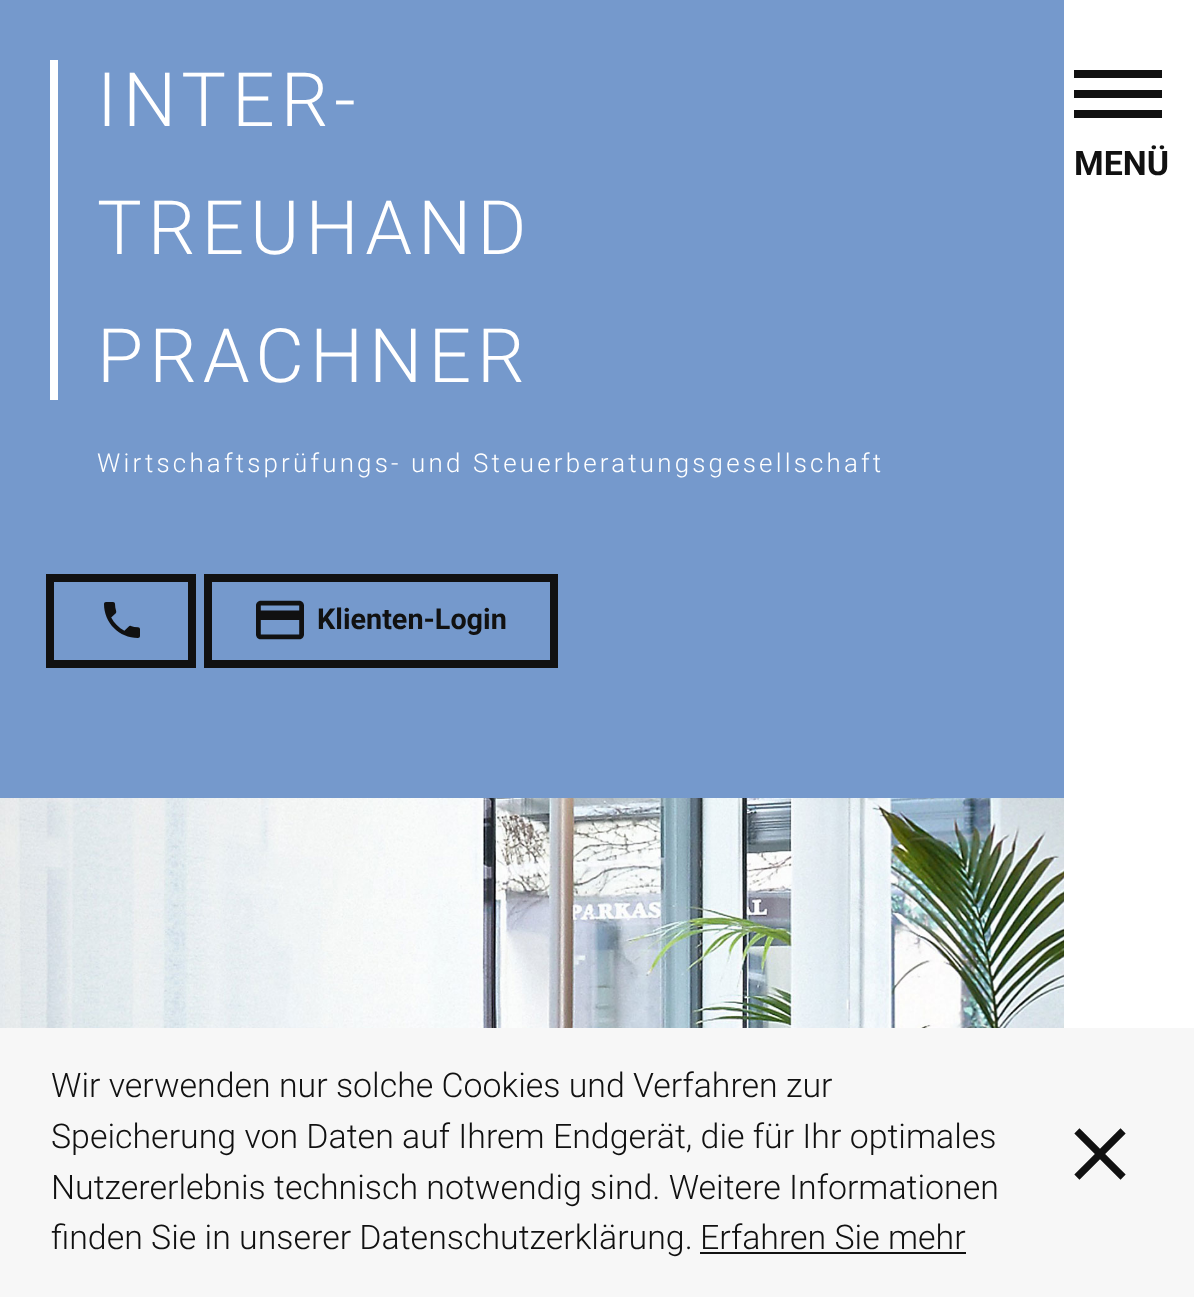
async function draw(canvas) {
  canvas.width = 1194
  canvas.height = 1297
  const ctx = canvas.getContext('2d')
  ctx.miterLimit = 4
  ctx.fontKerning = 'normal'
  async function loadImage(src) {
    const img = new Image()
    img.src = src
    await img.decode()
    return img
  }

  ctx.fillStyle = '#7599cc'
  ctx.fillRect(0, 0, 1194, 1297)
  ctx.fillStyle = '#fff'
  ctx.fillRect(50, 60, 8, 340)
  ctx.letterSpacing = '6px'
  ctx.font = '300 75px Roboto'
  ctx.fillText('INTER-', 97, 126)
  ctx.fillText('TREUHAND', 97, 254)
  ctx.fillText('PRACHNER', 97, 382)
  ctx.letterSpacing = '3.2px'
  ctx.font = '300 25.9px Roboto'
  ctx.fillText('Wirtschaftsprüfungs- und Steuerberatungsgesellschaft', 97, 472)
  ctx.strokeStyle = '#111'
  ctx.lineWidth = 8
  ctx.strokeRect(50, 578, 142, 86)
  ctx.drawImage(await loadImage('image0.png'), 104, 602, 36, 36)
  ctx.strokeRect(208, 578, 346, 86)
  ctx.drawImage(await loadImage('image1.png'), 256, 600, 48, 40)
  ctx.letterSpacing = '0px'
  ctx.font = 'bold 28.75px Roboto'
  ctx.fillStyle = '#111'
  ctx.fillText('Klienten-Login', 317, 629)
  ctx.drawImage(await loadImage('image2.png'), 0, 798, 1064, 230)
  ctx.fillStyle = '#fff'
  ctx.fillRect(1064, 0, 130, 1028)
  ctx.fillStyle = '#111'
  ctx.fillRect(1074, 70, 88, 8)
  ctx.fillRect(1074, 90, 88, 8)
  ctx.fillRect(1074, 110, 88, 8)
  ctx.font = 'bold 33.9px Roboto'
  ctx.fillText('MENÜ', 1074, 175)
  ctx.fillStyle = '#f7f7f7'
  ctx.fillRect(0, 1028, 1194, 269)
  ctx.font = '300 33.9px Roboto'
  ctx.fillStyle = '#111'
  ctx.fillText('Wir verwenden nur solche Cookies und Verfahren zur', 51, 1097)
  ctx.fillText('Speicherung von Daten auf Ihrem Endgerät, die für Ihr optimales', 51, 1148)
  ctx.fillText('Nutzererlebnis technisch notwendig sind. Weitere Informationen', 51, 1199)
  ctx.fillText('finden Sie in unserer Datenschutzerklärung.', 51, 1249)
  ctx.fillText('Erfahren Sie mehr', 700, 1249)
  ctx.fillRect(700, 1252, 266, 2)
  ctx.drawImage(await loadImage('image3.png'), 1074, 1128, 52, 52)
}

draw(document.querySelector('canvas'))
